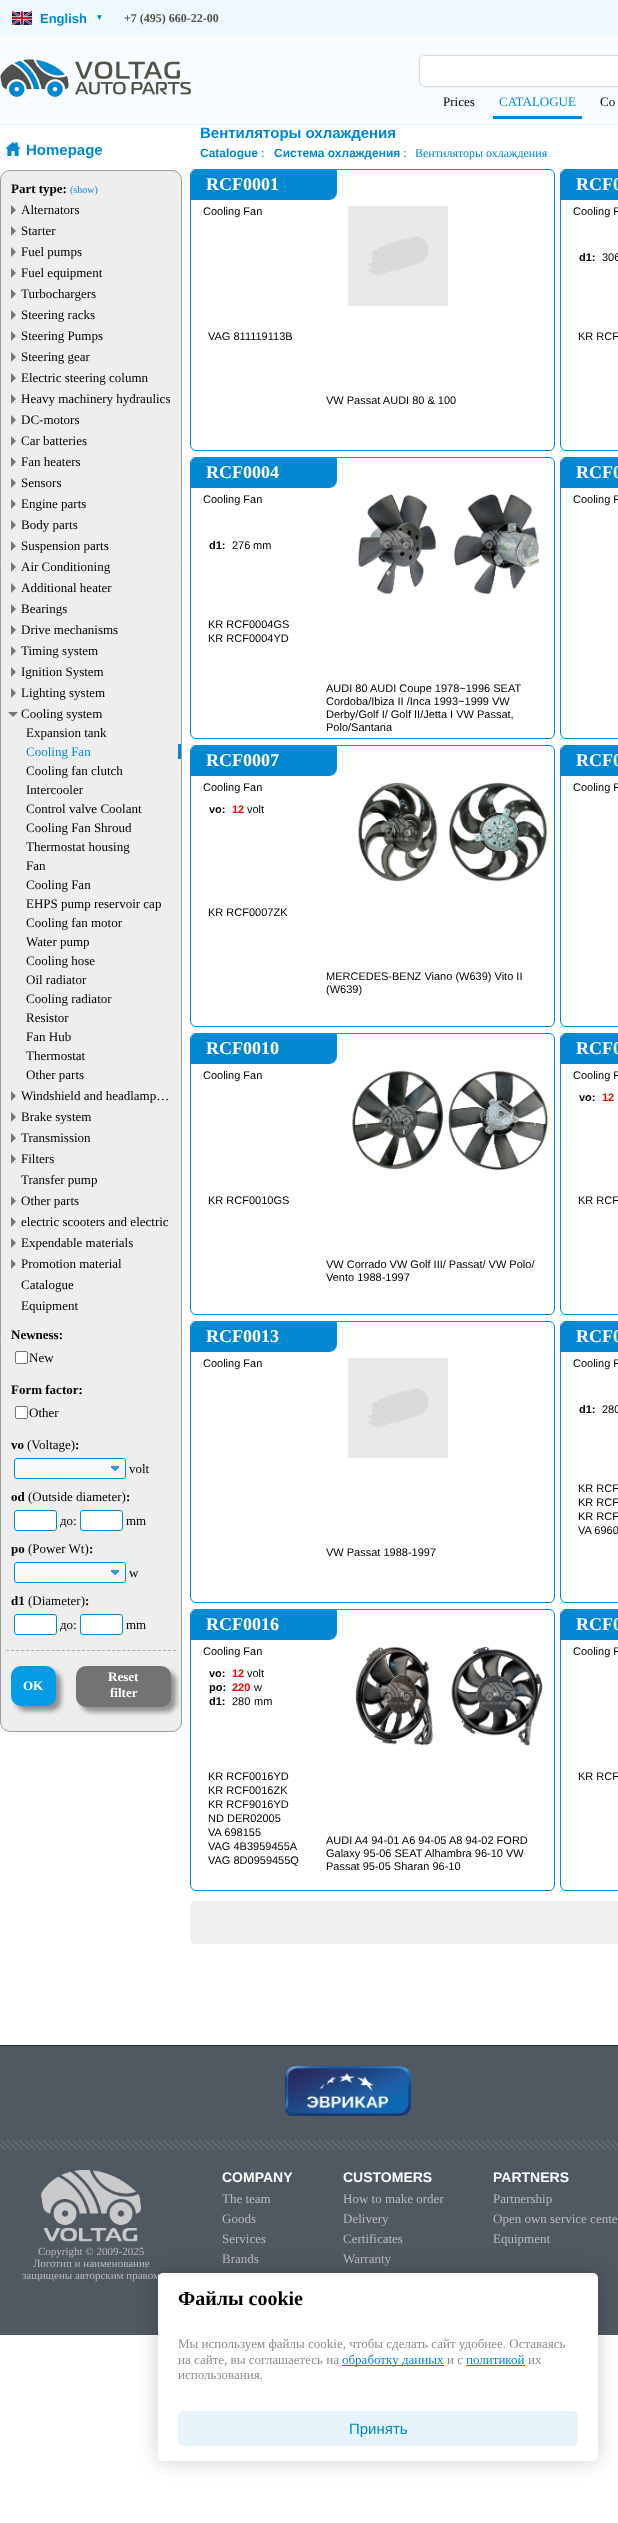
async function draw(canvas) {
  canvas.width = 618
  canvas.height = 2523
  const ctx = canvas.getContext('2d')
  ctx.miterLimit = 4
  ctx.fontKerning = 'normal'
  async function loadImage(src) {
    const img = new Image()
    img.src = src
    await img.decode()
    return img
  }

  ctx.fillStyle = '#fff'
  ctx.fillRect(0, 0, 618, 2523)
  ctx.fillStyle = '#f8fcff'
  ctx.fillRect(0, 36, 618, 88)
  ctx.fillStyle = '#e1f5fe'
  ctx.fillRect(0, 124, 618, 1)
  ctx.fillStyle = '#f0f8ff'
  ctx.fillRect(0, 0, 618, 36)
  ctx.drawImage(await loadImage('image0.png'), 12, 11, 20, 14)
  ctx.font = 'bold 13px Liberation Sans'
  ctx.fillStyle = '#0288d1'
  ctx.fillText('English', 40, 23)
  ctx.font = 'bold 9px DejaVu Sans'
  ctx.fillText('▾', 97, 20)
  ctx.font = 'bold 12px Liberation Serif'
  ctx.fillStyle = '#535448'
  ctx.fillText('+7 (495) 660-22-00', 124, 22)
  ctx.drawImage(await loadImage('image1.png'), 0, 59, 191, 38)
  ctx.save()
  ctx.beginPath()
  ctx.moveTo(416, 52)
  ctx.lineTo(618, 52)
  ctx.lineTo(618, 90)
  ctx.lineTo(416, 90)
  ctx.closePath()
  ctx.moveTo(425, 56)
  ctx.lineTo(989, 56)
  ctx.bezierCurveTo(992, 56, 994, 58, 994, 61)
  ctx.lineTo(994, 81)
  ctx.bezierCurveTo(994, 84, 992, 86, 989, 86)
  ctx.lineTo(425, 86)
  ctx.bezierCurveTo(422, 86, 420, 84, 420, 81)
  ctx.lineTo(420, 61)
  ctx.bezierCurveTo(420, 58, 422, 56, 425, 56)
  ctx.closePath()
  ctx.clip('evenodd')
  ctx.fillStyle = '#32323280'
  ctx.filter = 'blur(1px)'
  ctx.beginPath()
  ctx.roundRect(420, 56, 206, 30, 5)
  ctx.fill()
  ctx.filter = 'none'
  ctx.restore()
  ctx.fillStyle = '#fff'
  ctx.beginPath()
  ctx.moveTo(425, 56)
  ctx.lineTo(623, 56)
  ctx.lineTo(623, 84)
  ctx.lineTo(425, 84)
  ctx.bezierCurveTo(422, 84, 420, 82, 420, 79)
  ctx.lineTo(420, 61)
  ctx.bezierCurveTo(420, 58, 422, 56, 425, 56)
  ctx.closePath()
  ctx.fill()
  ctx.font = '13px Liberation Serif'
  ctx.fillStyle = '#000'
  ctx.fillText('Prices', 443, 106)
  ctx.fillStyle = '#0288d1'
  ctx.fillRect(493, 116, 89, 3)
  ctx.fillText('CATALOGUE', 499, 106)
  ctx.fillStyle = '#000'
  ctx.fillText('Сo', 600, 106)
  ctx.drawImage(await loadImage('image2.png'), 5, 142, 16, 14)
  ctx.font = 'bold 15px Liberation Sans'
  ctx.fillStyle = '#0288d1'
  ctx.fillText('Homepage', 26, 155)
  ctx.fillStyle = '#eee'
  ctx.beginPath()
  ctx.roundRect(0.5, 170.5, 181, 1561, 9.5)
  ctx.fill()
  ctx.strokeStyle = '#9e9e9e'
  ctx.stroke()
  ctx.font = 'bold 13px Liberation Serif'
  ctx.fillStyle = '#000'
  ctx.fillText('Part type:', 11, 193)
  ctx.font = '10px Liberation Serif'
  ctx.fillStyle = '#0288d1'
  ctx.fillText('(show)', 70, 193)
  ctx.fillStyle = '#777'
  ctx.beginPath()
  ctx.moveTo(11, 215)
  ctx.lineTo(11, 205)
  ctx.lineTo(16, 210)
  ctx.closePath()
  ctx.fill()
  ctx.font = '13px Liberation Serif'
  ctx.fillStyle = '#000'
  ctx.fillText('Alternators', 21, 214)
  ctx.fillStyle = '#777'
  ctx.beginPath()
  ctx.moveTo(11, 236)
  ctx.lineTo(11, 226)
  ctx.lineTo(16, 231)
  ctx.closePath()
  ctx.fill()
  ctx.fillStyle = '#000'
  ctx.fillText('Starter', 21, 235)
  ctx.fillStyle = '#777'
  ctx.beginPath()
  ctx.moveTo(11, 257)
  ctx.lineTo(11, 247)
  ctx.lineTo(16, 252)
  ctx.closePath()
  ctx.fill()
  ctx.fillStyle = '#000'
  ctx.fillText('Fuel pumps', 21, 256)
  ctx.fillStyle = '#777'
  ctx.beginPath()
  ctx.moveTo(11, 278)
  ctx.lineTo(11, 268)
  ctx.lineTo(16, 273)
  ctx.closePath()
  ctx.fill()
  ctx.fillStyle = '#000'
  ctx.fillText('Fuel equipment', 21, 277)
  ctx.fillStyle = '#777'
  ctx.beginPath()
  ctx.moveTo(11, 299)
  ctx.lineTo(11, 289)
  ctx.lineTo(16, 294)
  ctx.closePath()
  ctx.fill()
  ctx.fillStyle = '#000'
  ctx.fillText('Turbochargers', 21, 298)
  ctx.fillStyle = '#777'
  ctx.beginPath()
  ctx.moveTo(11, 320)
  ctx.lineTo(11, 310)
  ctx.lineTo(16, 315)
  ctx.closePath()
  ctx.fill()
  ctx.fillStyle = '#000'
  ctx.fillText('Steering racks', 21, 319)
  ctx.fillStyle = '#777'
  ctx.beginPath()
  ctx.moveTo(11, 341)
  ctx.lineTo(11, 331)
  ctx.lineTo(16, 336)
  ctx.closePath()
  ctx.fill()
  ctx.fillStyle = '#000'
  ctx.fillText('Steering Pumps', 21, 340)
  ctx.fillStyle = '#777'
  ctx.beginPath()
  ctx.moveTo(11, 362)
  ctx.lineTo(11, 352)
  ctx.lineTo(16, 357)
  ctx.closePath()
  ctx.fill()
  ctx.fillStyle = '#000'
  ctx.fillText('Steering gear', 21, 361)
  ctx.fillStyle = '#777'
  ctx.beginPath()
  ctx.moveTo(11, 383)
  ctx.lineTo(11, 373)
  ctx.lineTo(16, 378)
  ctx.closePath()
  ctx.fill()
  ctx.fillStyle = '#000'
  ctx.fillText('Electric steering column', 21, 382)
  ctx.fillStyle = '#777'
  ctx.beginPath()
  ctx.moveTo(11, 404)
  ctx.lineTo(11, 394)
  ctx.lineTo(16, 399)
  ctx.closePath()
  ctx.fill()
  ctx.fillStyle = '#000'
  ctx.fillText('Heavy machinery hydraulics', 21, 403)
  ctx.fillStyle = '#777'
  ctx.beginPath()
  ctx.moveTo(11, 425)
  ctx.lineTo(11, 415)
  ctx.lineTo(16, 420)
  ctx.closePath()
  ctx.fill()
  ctx.fillStyle = '#000'
  ctx.fillText('DC-motors', 21, 424)
  ctx.fillStyle = '#777'
  ctx.beginPath()
  ctx.moveTo(11, 446)
  ctx.lineTo(11, 436)
  ctx.lineTo(16, 441)
  ctx.closePath()
  ctx.fill()
  ctx.fillStyle = '#000'
  ctx.fillText('Car batteries', 21, 445)
  ctx.fillStyle = '#777'
  ctx.beginPath()
  ctx.moveTo(11, 467)
  ctx.lineTo(11, 457)
  ctx.lineTo(16, 462)
  ctx.closePath()
  ctx.fill()
  ctx.fillStyle = '#000'
  ctx.fillText('Fan heaters', 21, 466)
  ctx.fillStyle = '#777'
  ctx.beginPath()
  ctx.moveTo(11, 488)
  ctx.lineTo(11, 478)
  ctx.lineTo(16, 483)
  ctx.closePath()
  ctx.fill()
  ctx.fillStyle = '#000'
  ctx.fillText('Sensors', 21, 487)
  ctx.fillStyle = '#777'
  ctx.beginPath()
  ctx.moveTo(11, 509)
  ctx.lineTo(11, 499)
  ctx.lineTo(16, 504)
  ctx.closePath()
  ctx.fill()
  ctx.fillStyle = '#000'
  ctx.fillText('Engine parts', 21, 508)
  ctx.fillStyle = '#777'
  ctx.beginPath()
  ctx.moveTo(11, 530)
  ctx.lineTo(11, 520)
  ctx.lineTo(16, 525)
  ctx.closePath()
  ctx.fill()
  ctx.fillStyle = '#000'
  ctx.fillText('Body parts', 21, 529)
  ctx.fillStyle = '#777'
  ctx.beginPath()
  ctx.moveTo(11, 551)
  ctx.lineTo(11, 541)
  ctx.lineTo(16, 546)
  ctx.closePath()
  ctx.fill()
  ctx.fillStyle = '#000'
  ctx.fillText('Suspension parts', 21, 550)
  ctx.fillStyle = '#777'
  ctx.beginPath()
  ctx.moveTo(11, 572)
  ctx.lineTo(11, 562)
  ctx.lineTo(16, 567)
  ctx.closePath()
  ctx.fill()
  ctx.fillStyle = '#000'
  ctx.fillText('Air Conditioning', 21, 571)
  ctx.fillStyle = '#777'
  ctx.beginPath()
  ctx.moveTo(11, 593)
  ctx.lineTo(11, 583)
  ctx.lineTo(16, 588)
  ctx.closePath()
  ctx.fill()
  ctx.fillStyle = '#000'
  ctx.fillText('Additional heater', 21, 592)
  ctx.fillStyle = '#777'
  ctx.beginPath()
  ctx.moveTo(11, 614)
  ctx.lineTo(11, 604)
  ctx.lineTo(16, 609)
  ctx.closePath()
  ctx.fill()
  ctx.fillStyle = '#000'
  ctx.fillText('Bearings', 21, 613)
  ctx.fillStyle = '#777'
  ctx.beginPath()
  ctx.moveTo(11, 635)
  ctx.lineTo(11, 625)
  ctx.lineTo(16, 630)
  ctx.closePath()
  ctx.fill()
  ctx.fillStyle = '#000'
  ctx.fillText('Drive mechanisms', 21, 634)
  ctx.fillStyle = '#777'
  ctx.beginPath()
  ctx.moveTo(11, 656)
  ctx.lineTo(11, 646)
  ctx.lineTo(16, 651)
  ctx.closePath()
  ctx.fill()
  ctx.fillStyle = '#000'
  ctx.fillText('Timing system', 21, 655)
  ctx.fillStyle = '#777'
  ctx.beginPath()
  ctx.moveTo(11, 677)
  ctx.lineTo(11, 667)
  ctx.lineTo(16, 672)
  ctx.closePath()
  ctx.fill()
  ctx.fillStyle = '#000'
  ctx.fillText('Ignition System', 21, 676)
  ctx.fillStyle = '#777'
  ctx.beginPath()
  ctx.moveTo(11, 698)
  ctx.lineTo(11, 688)
  ctx.lineTo(16, 693)
  ctx.closePath()
  ctx.fill()
  ctx.fillStyle = '#000'
  ctx.fillText('Lighting system', 21, 697)
  ctx.fillStyle = '#777'
  ctx.beginPath()
  ctx.moveTo(8, 712)
  ctx.lineTo(18, 712)
  ctx.lineTo(13, 717)
  ctx.closePath()
  ctx.fill()
  ctx.fillStyle = '#000'
  ctx.fillText('Cooling system', 21, 718)
  ctx.fillText('Expansion tank', 26, 737)
  ctx.fillStyle = '#0288d1'
  ctx.fillRect(178, 744, 3, 15)
  ctx.fillText('Cooling Fan', 26, 756)
  ctx.fillStyle = '#000'
  ctx.fillText('Cooling fan clutch', 26, 775)
  ctx.fillText('Intercooler', 26, 794)
  ctx.fillText('Control valve Coolant', 26, 813)
  ctx.fillText('Cooling Fan Shroud', 26, 832)
  ctx.fillText('Thermostat housing', 26, 851)
  ctx.fillText('Fan', 26, 870)
  ctx.fillText('Cooling Fan', 26, 889)
  ctx.fillText('EHPS pump reservoir cap', 26, 908)
  ctx.fillText('Cooling fan motor', 26, 927)
  ctx.fillText('Water pump', 26, 946)
  ctx.fillText('Cooling hose', 26, 965)
  ctx.fillText('Oil radiator', 26, 984)
  ctx.fillText('Cooling radiator', 26, 1003)
  ctx.fillText('Resistor', 26, 1022)
  ctx.fillText('Fan Hub', 26, 1041)
  ctx.fillText('Thermostat', 26, 1060)
  ctx.fillText('Other parts', 26, 1079)
  ctx.fillStyle = '#777'
  ctx.beginPath()
  ctx.moveTo(11, 1101)
  ctx.lineTo(11, 1091)
  ctx.lineTo(16, 1096)
  ctx.closePath()
  ctx.fill()
  ctx.fillStyle = '#000'
  ctx.fillText('Windshield and headlamp…', 21, 1100)
  ctx.fillStyle = '#777'
  ctx.beginPath()
  ctx.moveTo(11, 1122)
  ctx.lineTo(11, 1112)
  ctx.lineTo(16, 1117)
  ctx.closePath()
  ctx.fill()
  ctx.fillStyle = '#000'
  ctx.fillText('Brake system', 21, 1121)
  ctx.fillStyle = '#777'
  ctx.beginPath()
  ctx.moveTo(11, 1143)
  ctx.lineTo(11, 1133)
  ctx.lineTo(16, 1138)
  ctx.closePath()
  ctx.fill()
  ctx.fillStyle = '#000'
  ctx.fillText('Transmission', 21, 1142)
  ctx.fillStyle = '#777'
  ctx.beginPath()
  ctx.moveTo(11, 1164)
  ctx.lineTo(11, 1154)
  ctx.lineTo(16, 1159)
  ctx.closePath()
  ctx.fill()
  ctx.fillStyle = '#000'
  ctx.fillText('Filters', 21, 1163)
  ctx.fillText('Transfer pump', 21, 1184)
  ctx.fillStyle = '#777'
  ctx.beginPath()
  ctx.moveTo(11, 1206)
  ctx.lineTo(11, 1196)
  ctx.lineTo(16, 1201)
  ctx.closePath()
  ctx.fill()
  ctx.fillStyle = '#000'
  ctx.fillText('Other parts', 21, 1205)
  ctx.fillStyle = '#777'
  ctx.beginPath()
  ctx.moveTo(11, 1227)
  ctx.lineTo(11, 1217)
  ctx.lineTo(16, 1222)
  ctx.closePath()
  ctx.fill()
  ctx.fillStyle = '#000'
  ctx.fillText('electric scooters and electric', 21, 1226)
  ctx.fillStyle = '#777'
  ctx.beginPath()
  ctx.moveTo(11, 1248)
  ctx.lineTo(11, 1238)
  ctx.lineTo(16, 1243)
  ctx.closePath()
  ctx.fill()
  ctx.fillStyle = '#000'
  ctx.fillText('Expendable materials', 21, 1247)
  ctx.fillStyle = '#777'
  ctx.beginPath()
  ctx.moveTo(11, 1269)
  ctx.lineTo(11, 1259)
  ctx.lineTo(16, 1264)
  ctx.closePath()
  ctx.fill()
  ctx.fillStyle = '#000'
  ctx.fillText('Promotion material', 21, 1268)
  ctx.fillText('Catalogue', 21, 1289)
  ctx.fillText('Equipment', 21, 1310)
  ctx.font = 'bold 13px Liberation Serif'
  ctx.fillText('Newness:', 11, 1339)
  ctx.fillStyle = '#fff'
  ctx.beginPath()
  ctx.roundRect(15.5, 1351.5, 12, 12, 1.5)
  ctx.fill()
  ctx.strokeStyle = '#767676'
  ctx.stroke()
  ctx.font = '13px Liberation Serif'
  ctx.fillStyle = '#000'
  ctx.fillText('New', 29, 1362)
  ctx.font = 'bold 13px Liberation Serif'
  ctx.fillText('Form factor:', 11, 1394)
  ctx.fillStyle = '#fff'
  ctx.beginPath()
  ctx.roundRect(15.5, 1406.5, 12, 12, 1.5)
  ctx.fill()
  ctx.stroke()
  ctx.font = '13px Liberation Serif'
  ctx.fillStyle = '#000'
  ctx.fillText('Other', 29, 1417)
  ctx.font = 'bold 13px Liberation Serif'
  ctx.fillText('vo', 11, 1449)
  ctx.font = '13px Liberation Serif'
  ctx.fillText('(Voltage)', 27, 1449)
  ctx.font = 'bold 13px Liberation Serif'
  ctx.fillText(':', 75, 1449)
  ctx.fillStyle = '#f8f8f8'
  ctx.beginPath()
  ctx.roundRect(14, 1458, 112, 21, 3)
  ctx.fill()
  ctx.drawImage(await loadImage('image3.png'), 111, 1466, 8, 5)
  ctx.beginPath()
  ctx.roundRect(14.5, 1458.5, 111, 20, 2.5)
  ctx.strokeStyle = '#0288d1'
  ctx.stroke()
  ctx.font = '13px Liberation Serif'
  ctx.fillStyle = '#000'
  ctx.fillText('volt', 129, 1473)
  ctx.font = 'bold 13px Liberation Serif'
  ctx.fillText('od', 11, 1501)
  ctx.font = '13px Liberation Serif'
  ctx.fillText('(Outside diameter)', 28, 1501)
  ctx.font = 'bold 13px Liberation Serif'
  ctx.fillText(':', 126, 1501)
  ctx.fillStyle = '#fff'
  ctx.beginPath()
  ctx.roundRect(14.5, 1510.5, 42, 20, 2.5)
  ctx.fill()
  ctx.stroke()
  ctx.font = '13px Liberation Serif'
  ctx.fillStyle = '#000'
  ctx.fillText('до:', 60, 1525)
  ctx.fillStyle = '#fff'
  ctx.beginPath()
  ctx.roundRect(80.5, 1510.5, 42, 20, 2.5)
  ctx.fill()
  ctx.stroke()
  ctx.fillStyle = '#000'
  ctx.fillText('mm', 126, 1525)
  ctx.font = 'bold 13px Liberation Serif'
  ctx.fillText('po', 11, 1553)
  ctx.font = '13px Liberation Serif'
  ctx.fillText('(Power Wt)', 28, 1553)
  ctx.font = 'bold 13px Liberation Serif'
  ctx.fillText(':', 89, 1553)
  ctx.fillStyle = '#f8f8f8'
  ctx.beginPath()
  ctx.roundRect(14, 1562, 112, 21, 3)
  ctx.fill()
  ctx.drawImage(await loadImage('image3.png'), 111, 1570, 8, 5)
  ctx.beginPath()
  ctx.roundRect(14.5, 1562.5, 111, 20, 2.5)
  ctx.stroke()
  ctx.font = '13px Liberation Serif'
  ctx.fillStyle = '#000'
  ctx.fillText('w', 129, 1577)
  ctx.font = 'bold 13px Liberation Serif'
  ctx.fillText('d1', 11, 1605)
  ctx.font = '13px Liberation Serif'
  ctx.fillText('(Diameter)', 28, 1605)
  ctx.font = 'bold 13px Liberation Serif'
  ctx.fillText(':', 85, 1605)
  ctx.fillStyle = '#fff'
  ctx.beginPath()
  ctx.roundRect(14.5, 1614.5, 42, 20, 2.5)
  ctx.fill()
  ctx.stroke()
  ctx.font = '13px Liberation Serif'
  ctx.fillStyle = '#000'
  ctx.fillText('до:', 60, 1629)
  ctx.fillStyle = '#fff'
  ctx.beginPath()
  ctx.roundRect(80.5, 1614.5, 42, 20, 2.5)
  ctx.fill()
  ctx.stroke()
  ctx.fillStyle = '#000'
  ctx.fillText('mm', 126, 1629)
  ctx.beginPath()
  ctx.moveTo(6, 1650.5)
  ctx.lineTo(176, 1650.5)
  ctx.strokeStyle = '#ababab'
  ctx.setLineDash([3, 2.06])
  ctx.stroke()
  ctx.fillStyle = '#32323280'
  ctx.filter = 'blur(2.5px)'
  ctx.beginPath()
  ctx.roundRect(16, 1671, 45, 40, 10)
  ctx.fill()
  ctx.filter = 'none'
  ctx.fillStyle = '#039be5'
  ctx.beginPath()
  ctx.roundRect(11, 1666, 45, 40, 10)
  ctx.fill()
  ctx.font = 'bold 13px Liberation Serif'
  ctx.fillStyle = '#fff'
  ctx.fillText('OK', 23, 1690)
  ctx.fillStyle = '#32323280'
  ctx.filter = 'blur(2.5px)'
  ctx.beginPath()
  ctx.roundRect(81, 1671, 95, 41, 10)
  ctx.fill()
  ctx.filter = 'none'
  ctx.fillStyle = '#737373'
  ctx.beginPath()
  ctx.roundRect(76, 1666, 95, 41, 10)
  ctx.fill()
  ctx.fillStyle = '#fff'
  ctx.fillText('Reset', 108, 1681)
  ctx.fillText('filter', 110, 1697)
  ctx.font = 'bold 15px Liberation Sans'
  ctx.fillStyle = '#0288d1'
  ctx.fillText('Вентиляторы охлаждения', 200, 138)
  ctx.font = 'bold 12px Liberation Sans'
  ctx.fillText('Catalogue', 200, 157)
  ctx.font = '13px Liberation Serif'
  ctx.fillText(':', 261, 157)
  ctx.font = 'bold 12px Liberation Sans'
  ctx.fillText('Система охлаждения', 274, 157)
  ctx.font = '13px Liberation Serif'
  ctx.fillText(':', 403, 157)
  ctx.font = '12px Liberation Serif'
  ctx.fillText('Вентиляторы охлаждения', 415, 157)
  ctx.beginPath()
  ctx.roundRect(190.5, 169.5, 364, 281, 5.5)
  ctx.strokeStyle = '#0288d1'
  ctx.setLineDash([])
  ctx.stroke()
  ctx.beginPath()
  ctx.roundRect(191, 170, 146, 30, [5, 0, 8, 0])
  ctx.fill()
  ctx.font = 'bold 18px Liberation Serif'
  ctx.fillStyle = '#fff'
  ctx.fillText('RCF0001', 206, 190)
  ctx.font = '11px Liberation Sans'
  ctx.fillStyle = '#000'
  ctx.fillText('Cooling Fan', 203, 215)
  ctx.drawImage(await loadImage('image4.png'), 348, 206, 100, 100)
  ctx.fillText('VAG 811119113B', 208, 340)
  ctx.fillText('VW Passat AUDI 80 & 100', 326, 404)
  ctx.beginPath()
  ctx.roundRect(560.5, 169.5, 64, 281, 5.5)
  ctx.stroke()
  ctx.fillStyle = '#0288d1'
  ctx.beginPath()
  ctx.moveTo(566, 170)
  ctx.lineTo(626, 170)
  ctx.lineTo(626, 192)
  ctx.bezierCurveTo(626, 196.5, 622.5, 200, 618, 200)
  ctx.lineTo(561, 200)
  ctx.lineTo(561, 175)
  ctx.bezierCurveTo(561, 172, 563, 170, 566, 170)
  ctx.closePath()
  ctx.fill()
  ctx.font = 'bold 18px Liberation Serif'
  ctx.fillStyle = '#fff'
  ctx.fillText('RCF0', 576, 190)
  ctx.font = '11px Liberation Sans'
  ctx.fillStyle = '#000'
  ctx.fillText('Cooling F', 573, 215)
  ctx.font = 'bold 11px Liberation Sans'
  ctx.fillText('d1:', 579, 261)
  ctx.font = '11px Liberation Sans'
  ctx.fillText('306', 602, 261)
  ctx.fillText('KR RCF', 578, 340)
  ctx.beginPath()
  ctx.roundRect(190.5, 457.5, 364, 281, 5.5)
  ctx.stroke()
  ctx.fillStyle = '#0288d1'
  ctx.beginPath()
  ctx.roundRect(191, 458, 146, 30, [5, 0, 8, 0])
  ctx.fill()
  ctx.font = 'bold 18px Liberation Serif'
  ctx.fillStyle = '#fff'
  ctx.fillText('RCF0004', 206, 478)
  ctx.font = '11px Liberation Sans'
  ctx.fillStyle = '#000'
  ctx.fillText('Cooling Fan', 203, 503)
  ctx.drawImage(await loadImage('image5.png'), 358, 494, 78, 100)
  ctx.drawImage(await loadImage('image6.png'), 454, 494, 86, 100)
  ctx.font = 'bold 11px Liberation Sans'
  ctx.fillText('d1:', 209, 549)
  ctx.font = '11px Liberation Sans'
  ctx.fillText('276', 232, 549)
  ctx.fillText('mm', 253, 549)
  ctx.fillText('KR RCF0004GS', 208, 628)
  ctx.fillText('KR RCF0004YD', 208, 642)
  ctx.fillText('AUDI 80 AUDI Coupe 1978~1996 SEAT', 326, 692)
  ctx.fillText('Cordoba/Ibiza II /Inca 1993~1999 VW', 326, 705)
  ctx.fillText('Derby/Golf I/ Golf II/Jetta I VW Passat,', 326, 718)
  ctx.fillText('Polo/Santana', 326, 731)
  ctx.beginPath()
  ctx.roundRect(560.5, 457.5, 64, 281, 5.5)
  ctx.stroke()
  ctx.fillStyle = '#0288d1'
  ctx.beginPath()
  ctx.moveTo(566, 458)
  ctx.lineTo(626, 458)
  ctx.lineTo(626, 480)
  ctx.bezierCurveTo(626, 484.5, 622.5, 488, 618, 488)
  ctx.lineTo(561, 488)
  ctx.lineTo(561, 463)
  ctx.bezierCurveTo(561, 460, 563, 458, 566, 458)
  ctx.closePath()
  ctx.fill()
  ctx.font = 'bold 18px Liberation Serif'
  ctx.fillStyle = '#fff'
  ctx.fillText('RCF0', 576, 478)
  ctx.font = '11px Liberation Sans'
  ctx.fillStyle = '#000'
  ctx.fillText('Cooling F', 573, 503)
  ctx.beginPath()
  ctx.roundRect(190.5, 745.5, 364, 281, 5.5)
  ctx.stroke()
  ctx.fillStyle = '#0288d1'
  ctx.beginPath()
  ctx.roundRect(191, 746, 146, 30, [5, 0, 8, 0])
  ctx.fill()
  ctx.font = 'bold 18px Liberation Serif'
  ctx.fillStyle = '#fff'
  ctx.fillText('RCF0007', 206, 766)
  ctx.font = '11px Liberation Sans'
  ctx.fillStyle = '#000'
  ctx.fillText('Cooling Fan', 203, 791)
  ctx.drawImage(await loadImage('image7.png'), 357, 782, 81, 100)
  ctx.drawImage(await loadImage('image8.png'), 448, 782, 100, 100)
  ctx.font = 'bold 11px Liberation Sans'
  ctx.fillText('vo:', 209, 813)
  ctx.fillStyle = '#f00'
  ctx.fillText('12', 232, 813)
  ctx.font = '11px Liberation Sans'
  ctx.fillStyle = '#000'
  ctx.fillText('volt', 247, 813)
  ctx.fillText('KR RCF0007ZK', 208, 916)
  ctx.fillText('MERCEDES-BENZ Viano (W639) Vito II', 326, 980)
  ctx.fillText('(W639)', 326, 993)
  ctx.beginPath()
  ctx.roundRect(560.5, 745.5, 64, 281, 5.5)
  ctx.stroke()
  ctx.fillStyle = '#0288d1'
  ctx.beginPath()
  ctx.moveTo(566, 746)
  ctx.lineTo(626, 746)
  ctx.lineTo(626, 768)
  ctx.bezierCurveTo(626, 772.5, 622.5, 776, 618, 776)
  ctx.lineTo(561, 776)
  ctx.lineTo(561, 751)
  ctx.bezierCurveTo(561, 748, 563, 746, 566, 746)
  ctx.closePath()
  ctx.fill()
  ctx.font = 'bold 18px Liberation Serif'
  ctx.fillStyle = '#fff'
  ctx.fillText('RCF0', 576, 766)
  ctx.font = '11px Liberation Sans'
  ctx.fillStyle = '#000'
  ctx.fillText('Cooling F', 573, 791)
  ctx.beginPath()
  ctx.roundRect(190.5, 1033.5, 364, 281, 5.5)
  ctx.stroke()
  ctx.fillStyle = '#0288d1'
  ctx.beginPath()
  ctx.roundRect(191, 1034, 146, 30, [5, 0, 8, 0])
  ctx.fill()
  ctx.font = 'bold 18px Liberation Serif'
  ctx.fillStyle = '#fff'
  ctx.fillText('RCF0010', 206, 1054)
  ctx.font = '11px Liberation Sans'
  ctx.fillStyle = '#000'
  ctx.fillText('Cooling Fan', 203, 1079)
  ctx.drawImage(await loadImage('image9.png'), 352, 1070, 92, 100)
  ctx.drawImage(await loadImage('image10.png'), 448, 1070, 100, 100)
  ctx.fillText('KR RCF0010GS', 208, 1204)
  ctx.fillText('VW Corrado VW Golf III/ Passat/ VW Polo/', 326, 1268)
  ctx.fillText('Vento 1988-1997', 326, 1281)
  ctx.beginPath()
  ctx.roundRect(560.5, 1033.5, 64, 281, 5.5)
  ctx.stroke()
  ctx.fillStyle = '#0288d1'
  ctx.beginPath()
  ctx.moveTo(566, 1034)
  ctx.lineTo(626, 1034)
  ctx.lineTo(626, 1056)
  ctx.bezierCurveTo(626, 1060.5, 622.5, 1064, 618, 1064)
  ctx.lineTo(561, 1064)
  ctx.lineTo(561, 1039)
  ctx.bezierCurveTo(561, 1036, 563, 1034, 566, 1034)
  ctx.closePath()
  ctx.fill()
  ctx.font = 'bold 18px Liberation Serif'
  ctx.fillStyle = '#fff'
  ctx.fillText('RCF0', 576, 1054)
  ctx.font = '11px Liberation Sans'
  ctx.fillStyle = '#000'
  ctx.fillText('Cooling F', 573, 1079)
  ctx.font = 'bold 11px Liberation Sans'
  ctx.fillText('vo:', 579, 1101)
  ctx.fillStyle = '#f00'
  ctx.fillText('12', 602, 1101)
  ctx.font = '11px Liberation Sans'
  ctx.fillStyle = '#000'
  ctx.fillText('KR RCF', 578, 1204)
  ctx.beginPath()
  ctx.roundRect(190.5, 1321.5, 364, 281, 5.5)
  ctx.stroke()
  ctx.fillStyle = '#0288d1'
  ctx.beginPath()
  ctx.roundRect(191, 1322, 146, 30, [5, 0, 8, 0])
  ctx.fill()
  ctx.font = 'bold 18px Liberation Serif'
  ctx.fillStyle = '#fff'
  ctx.fillText('RCF0013', 206, 1342)
  ctx.font = '11px Liberation Sans'
  ctx.fillStyle = '#000'
  ctx.fillText('Cooling Fan', 203, 1367)
  ctx.drawImage(await loadImage('image4.png'), 348, 1358, 100, 100)
  ctx.fillText('VW Passat 1988-1997', 326, 1556)
  ctx.beginPath()
  ctx.roundRect(560.5, 1321.5, 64, 281, 5.5)
  ctx.stroke()
  ctx.fillStyle = '#0288d1'
  ctx.beginPath()
  ctx.moveTo(566, 1322)
  ctx.lineTo(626, 1322)
  ctx.lineTo(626, 1344)
  ctx.bezierCurveTo(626, 1348.5, 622.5, 1352, 618, 1352)
  ctx.lineTo(561, 1352)
  ctx.lineTo(561, 1327)
  ctx.bezierCurveTo(561, 1324, 563, 1322, 566, 1322)
  ctx.closePath()
  ctx.fill()
  ctx.font = 'bold 18px Liberation Serif'
  ctx.fillStyle = '#fff'
  ctx.fillText('RCF0', 576, 1342)
  ctx.font = '11px Liberation Sans'
  ctx.fillStyle = '#000'
  ctx.fillText('Cooling F', 573, 1367)
  ctx.font = 'bold 11px Liberation Sans'
  ctx.fillText('d1:', 579, 1413)
  ctx.font = '11px Liberation Sans'
  ctx.fillText('280', 602, 1413)
  ctx.fillText('KR RCF', 578, 1492)
  ctx.fillText('KR RCF', 578, 1506)
  ctx.fillText('KR RCF', 578, 1520)
  ctx.fillText('VA 6960', 578, 1534)
  ctx.beginPath()
  ctx.roundRect(190.5, 1609.5, 364, 281, 5.5)
  ctx.stroke()
  ctx.fillStyle = '#0288d1'
  ctx.beginPath()
  ctx.roundRect(191, 1610, 146, 30, [5, 0, 8, 0])
  ctx.fill()
  ctx.font = 'bold 18px Liberation Serif'
  ctx.fillStyle = '#fff'
  ctx.fillText('RCF0016', 206, 1630)
  ctx.font = '11px Liberation Sans'
  ctx.fillStyle = '#000'
  ctx.fillText('Cooling Fan', 203, 1655)
  ctx.drawImage(await loadImage('image11.png'), 355, 1646, 78, 100)
  ctx.drawImage(await loadImage('image12.png'), 451, 1646, 92, 100)
  ctx.font = 'bold 11px Liberation Sans'
  ctx.fillText('vo:', 209, 1677)
  ctx.fillStyle = '#f00'
  ctx.fillText('12', 232, 1677)
  ctx.font = '11px Liberation Sans'
  ctx.fillStyle = '#000'
  ctx.fillText('volt', 247, 1677)
  ctx.font = 'bold 11px Liberation Sans'
  ctx.fillText('po:', 209, 1691)
  ctx.fillStyle = '#f00'
  ctx.fillText('220', 232, 1691)
  ctx.font = '11px Liberation Sans'
  ctx.fillStyle = '#000'
  ctx.fillText('w', 254, 1691)
  ctx.font = 'bold 11px Liberation Sans'
  ctx.fillText('d1:', 209, 1705)
  ctx.font = '11px Liberation Sans'
  ctx.fillText('280', 232, 1705)
  ctx.fillText('mm', 254, 1705)
  ctx.fillText('KR RCF0016YD', 208, 1780)
  ctx.fillText('KR RCF0016ZK', 208, 1794)
  ctx.fillText('KR RCF9016YD', 208, 1808)
  ctx.fillText('ND DER02005', 208, 1822)
  ctx.fillText('VA 698155', 208, 1836)
  ctx.fillText('VAG 4B3959455A', 208, 1850)
  ctx.fillText('VAG 8D0959455Q', 208, 1864)
  ctx.fillText('AUDI A4 94-01 A6 94-05 A8 94-02 FORD', 326, 1844)
  ctx.fillText('Galaxy 95-06 SEAT Alhambra 96-10 VW', 326, 1857)
  ctx.fillText('Passat 95-05 Sharan 96-10', 326, 1870)
  ctx.beginPath()
  ctx.roundRect(560.5, 1609.5, 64, 281, 5.5)
  ctx.stroke()
  ctx.fillStyle = '#0288d1'
  ctx.beginPath()
  ctx.moveTo(566, 1610)
  ctx.lineTo(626, 1610)
  ctx.lineTo(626, 1632)
  ctx.bezierCurveTo(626, 1636.5, 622.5, 1640, 618, 1640)
  ctx.lineTo(561, 1640)
  ctx.lineTo(561, 1615)
  ctx.bezierCurveTo(561, 1612, 563, 1610, 566, 1610)
  ctx.closePath()
  ctx.fill()
  ctx.font = 'bold 18px Liberation Serif'
  ctx.fillStyle = '#fff'
  ctx.fillText('RCF0', 576, 1630)
  ctx.font = '11px Liberation Sans'
  ctx.fillStyle = '#000'
  ctx.fillText('Cooling F', 573, 1655)
  ctx.fillText('KR RCF', 578, 1780)
  ctx.fillStyle = '#efefef'
  ctx.beginPath()
  ctx.roundRect(190, 1901, 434, 43, 6)
  ctx.fill()
  ctx.fillStyle = '#505862'
  ctx.fillRect(0, 2046, 618, 289)
  ctx.fillStyle = '#252931'
  ctx.fillRect(0, 2045, 618, 1)
  ctx.drawImage(await loadImage('image13.png'), 285, 2066, 126, 50)
  ctx.drawImage(await loadImage('image14.png'), 0, 2140, 618, 10)
  ctx.drawImage(await loadImage('image15.png'), 41, 2170, 100, 72)
  ctx.font = '11px Liberation Serif'
  ctx.fillStyle = '#bbb'
  ctx.fillText('Copyright © 2009-2025', 38, 2255)
  ctx.fillText('Логотип и наименование', 33, 2267)
  ctx.fillText('защищены авторским правом', 22, 2279)
  ctx.font = 'bold 14px Liberation Sans'
  ctx.fillStyle = '#fff'
  ctx.fillText('COMPANY', 222, 2182)
  ctx.font = '13px Liberation Serif'
  ctx.fillStyle = '#bbb'
  ctx.fillText('The team', 222, 2203)
  ctx.fillText('Goods', 222, 2223)
  ctx.fillText('Services', 222, 2243)
  ctx.fillText('Brands', 222, 2263)
  ctx.font = 'bold 14px Liberation Sans'
  ctx.fillStyle = '#fff'
  ctx.fillText('CUSTOMERS', 343, 2182)
  ctx.font = '13px Liberation Serif'
  ctx.fillStyle = '#bbb'
  ctx.fillText('How to make order', 343, 2203)
  ctx.fillText('Delivery', 343, 2223)
  ctx.fillText('Certificates', 343, 2243)
  ctx.fillText('Warranty', 343, 2263)
  ctx.font = 'bold 14px Liberation Sans'
  ctx.fillStyle = '#fff'
  ctx.fillText('PARTNERS', 493, 2182)
  ctx.font = '13px Liberation Serif'
  ctx.fillStyle = '#bbb'
  ctx.fillText('Partnership', 493, 2203)
  ctx.fillText('Open own service cente', 493, 2223)
  ctx.fillText('Equipment', 493, 2243)
  ctx.fillStyle = '#00000033'
  ctx.filter = 'blur(10px)'
  ctx.beginPath()
  ctx.roundRect(158, 2273, 440, 188, 5)
  ctx.fill()
  ctx.filter = 'none'
  ctx.fillStyle = '#fff'
  ctx.beginPath()
  ctx.roundRect(158, 2273, 440, 188, 5)
  ctx.fill()
  ctx.font = 'bold 20px Liberation Serif'
  ctx.fillStyle = '#000'
  ctx.fillText('Файлы cookie', 178, 2305)
  ctx.font = '13px Liberation Serif'
  ctx.fillStyle = '#8c8c8c'
  ctx.fillText('Мы используем файлы cookie, чтобы cделать сайт удобнее. Оставаясь', 178, 2348)
  ctx.fillText('на сайте, вы соглашаетесь на', 178, 2364)
  ctx.fillStyle = '#0288d1'
  ctx.fillRect(342, 2365, 102, 1)
  ctx.fillText('обработку данных', 342, 2364)
  ctx.fillStyle = '#8c8c8c'
  ctx.fillText('и с', 447, 2364)
  ctx.fillStyle = '#0288d1'
  ctx.fillText('политикой', 466, 2364)
  ctx.fillRect(466, 2365, 59, 1)
  ctx.fillStyle = '#8c8c8c'
  ctx.fillText('их', 528, 2364)
  ctx.fillText('использования.', 178, 2379)
  ctx.fillStyle = '#e6f3fa'
  ctx.beginPath()
  ctx.roundRect(178, 2411, 400, 35, 6)
  ctx.fill()
  ctx.font = '15px Liberation Sans'
  ctx.fillStyle = '#0288d1'
  ctx.fillText('Принять', 349, 2434)
}

draw(document.querySelector('canvas'))
